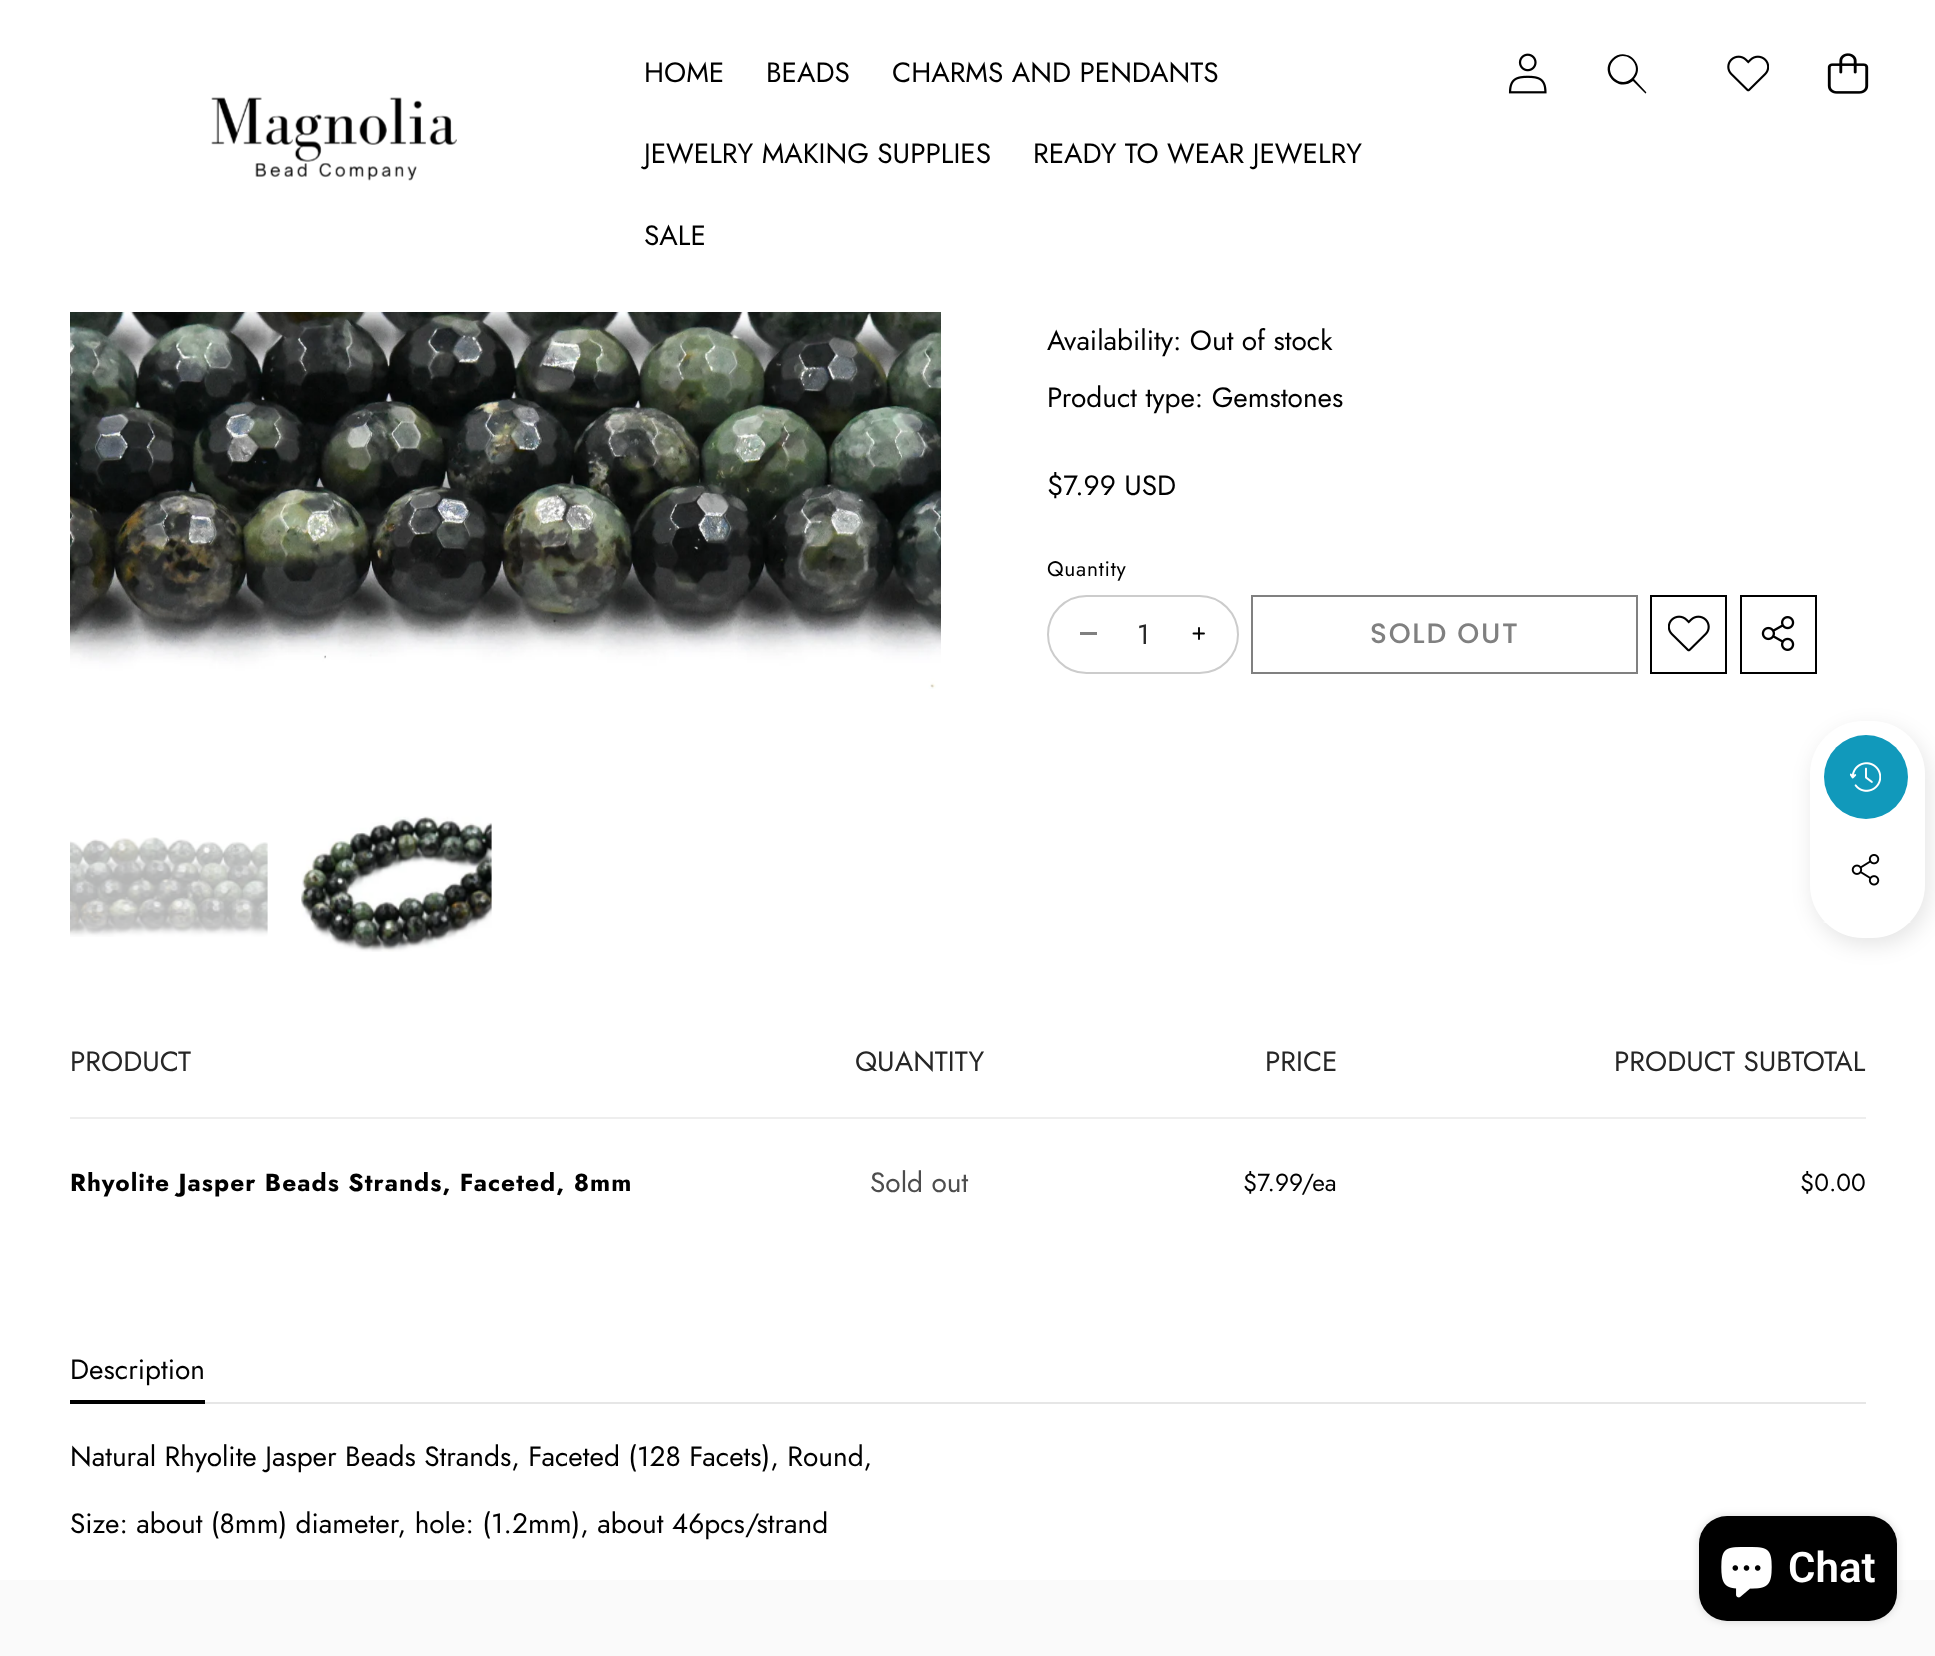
async function draw(canvas) {
  canvas.width = 1935
  canvas.height = 1656
  const ctx = canvas.getContext('2d')
  ctx.miterLimit = 4
  ctx.fontKerning = 'normal'
  async function loadImage(src) {
    const img = new Image()
    img.src = src
    await img.decode()
    return img
  }

  ctx.fillStyle = '#fff'
  ctx.fillRect(0, 0, 1935, 1656)
  ctx.drawImage(await loadImage('image0.png'), 211, 97, 246, 84)
  ctx.font = '28px Jost'
  ctx.fillStyle = '#000'
  ctx.fillText('HOME', 644, 82)
  ctx.fillText('BEADS', 766, 82)
  ctx.fillText('CHARMS AND PENDANTS', 892, 82)
  ctx.fillText('JEWELRY MAKING SUPPLIES', 644, 163)
  ctx.fillText('READY TO WEAR JEWELRY', 1033, 163)
  ctx.fillText('SALE', 644, 245)
  ctx.drawImage(await loadImage('image1.png'), 1508, 53, 39, 41)
  ctx.beginPath()
  ctx.moveTo(1632, 78)
  ctx.bezierCurveTo(1620, 90, 1602, 72, 1614, 60)
  ctx.bezierCurveTo(1626, 48, 1644, 66, 1632, 78)
  ctx.moveTo(1633, 81)
  ctx.bezierCurveTo(1618, 93, 1599, 72, 1612, 59)
  ctx.bezierCurveTo(1626, 45, 1647, 65, 1634, 79)
  ctx.lineTo(1646, 92)
  ctx.bezierCurveTo(1647, 93, 1645, 94, 1645, 93)
  ctx.closePath()
  ctx.fill('evenodd')
  ctx.drawImage(await loadImage('image2.png'), 1727, 55, 42, 37)
  ctx.drawImage(await loadImage('image3.png'), 1827, 53, 42, 41)
  ctx.drawImage(await loadImage('image4.png'), 70, 312, 871, 377)
  ctx.drawImage(await loadImage('image5.png'), 70, 837, 198, 100)
  ctx.drawImage(await loadImage('image6.png'), 301, 816, 191, 136)
  ctx.fillText('Availability: Out of stock', 1047, 350)
  ctx.fillText('Product type: Gemstones', 1047, 407)
  ctx.fillText('$7.99 USD', 1047, 495)
  ctx.letterSpacing = '0.75px'
  ctx.font = '21px Jost'
  ctx.fillText('Quantity', 1047, 576)
  ctx.fillStyle = '#808080'
  ctx.fillRect(1080, 632, 17, 3)
  ctx.beginPath()
  ctx.moveTo(1193.5, 633.5)
  ctx.lineTo(1204, 633.5)
  ctx.moveTo(1199, 628)
  ctx.lineTo(1199, 639)
  ctx.strokeStyle = '#000'
  ctx.lineWidth = 1.9
  ctx.lineCap = 'round'
  ctx.stroke()
  ctx.beginPath()
  ctx.roundRect(1048, 596, 190, 77, 38.5)
  ctx.strokeStyle = '#ccc'
  ctx.lineWidth = 2
  ctx.stroke()
  ctx.letterSpacing = '0px'
  ctx.font = '28px Jost'
  ctx.fillStyle = '#262626'
  ctx.fillText('1', 1137, 644)
  ctx.strokeStyle = '#808080'
  ctx.strokeRect(1252, 596, 385, 77)
  ctx.letterSpacing = '1.75px'
  ctx.font = '500 28px Poppins'
  ctx.fillStyle = '#808080'
  ctx.fillText('SOLD OUT', 1370, 643)
  ctx.strokeStyle = '#000'
  ctx.strokeRect(1651, 596, 75, 77)
  ctx.drawImage(await loadImage('image7.png'), 1668, 615, 42, 37)
  ctx.strokeRect(1741, 596, 75, 77)
  ctx.drawImage(await loadImage('image8.png'), 1761, 616, 34, 35)
  ctx.fillStyle = '#eee'
  ctx.fillRect(70, 1117, 1796, 2)
  ctx.letterSpacing = '0px'
  ctx.font = '28px Jost'
  ctx.fillStyle = '#262626'
  ctx.fillText('PRODUCT', 70, 1071)
  ctx.fillText('QUANTITY', 855, 1071)
  ctx.fillText('PRICE', 1265, 1071)
  ctx.fillText('PRODUCT SUBTOTAL', 1614, 1071)
  ctx.letterSpacing = '1.05px'
  ctx.font = 'bold 24.5px Jost'
  ctx.fillStyle = '#000'
  ctx.fillText('Rhyolite Jasper Beads Strands, Faceted, 8mm', 70, 1191)
  ctx.letterSpacing = '0px'
  ctx.font = '28px Jost'
  ctx.fillStyle = '#4d4d4d'
  ctx.fillText('Sold out', 870, 1192)
  ctx.font = '24.5px Jost'
  ctx.fillStyle = '#000'
  ctx.fillText('$7.99/ea', 1243, 1191)
  ctx.fillText('$0.00', 1800, 1191)
  ctx.fillStyle = '#e6e6e6'
  ctx.fillRect(205, 1402, 1661, 2)
  ctx.font = '28px Jost'
  ctx.fillStyle = '#000'
  ctx.fillText('Description', 70, 1379)
  ctx.fillRect(70, 1400, 135, 4)
  ctx.fillText('Natural Rhyolite Jasper Beads Strands, Faceted (128 Facets), Round,', 70, 1466)
  ctx.fillText('Size: about (8mm) diameter, hole: (1.2mm), about 46pcs/strand', 70, 1533)
  ctx.fillStyle = '#0000001a'
  ctx.filter = 'blur(10.5px)'
  ctx.beginPath()
  ctx.roundRect(1813, 728, 116, 217, 53)
  ctx.fill()
  ctx.filter = 'none'
  ctx.fillStyle = '#fff'
  ctx.beginPath()
  ctx.roundRect(1810, 721, 115, 217, 53)
  ctx.fill()
  ctx.fillStyle = '#19b'
  ctx.beginPath()
  ctx.arc(1866, 777, 42, 0, 2 * Math.PI)
  ctx.fill()
  ctx.drawImage(await loadImage('image9.png'), 1850, 762, 31, 30)
  ctx.drawImage(await loadImage('image10.png'), 1851, 854, 29, 32)
  ctx.fillStyle = '#fff'
  ctx.beginPath()
  ctx.ellipse(1867, 922, 44, 2, 0, 0, 2 * Math.PI)
  ctx.fill()
  ctx.fillStyle = '#fafafa'
  ctx.fillRect(0, 1580, 1935, 76)
  ctx.fillStyle = '#00000026'
  ctx.filter = 'blur(4.5px)'
  ctx.beginPath()
  ctx.roundRect(1699, 1516, 198, 105, 28)
  ctx.fill()
  ctx.filter = 'none'
  ctx.fillStyle = '#000'
  ctx.beginPath()
  ctx.roundRect(1699, 1516, 198, 105, 28)
  ctx.fill()
  ctx.drawImage(await loadImage('image11.png'), 1721, 1547, 51, 51)
  ctx.font = '600 42px Roboto'
  ctx.fillStyle = '#fff'
  ctx.fillText('Chat', 1788, 1582)
}

draw(document.querySelector('canvas'))
